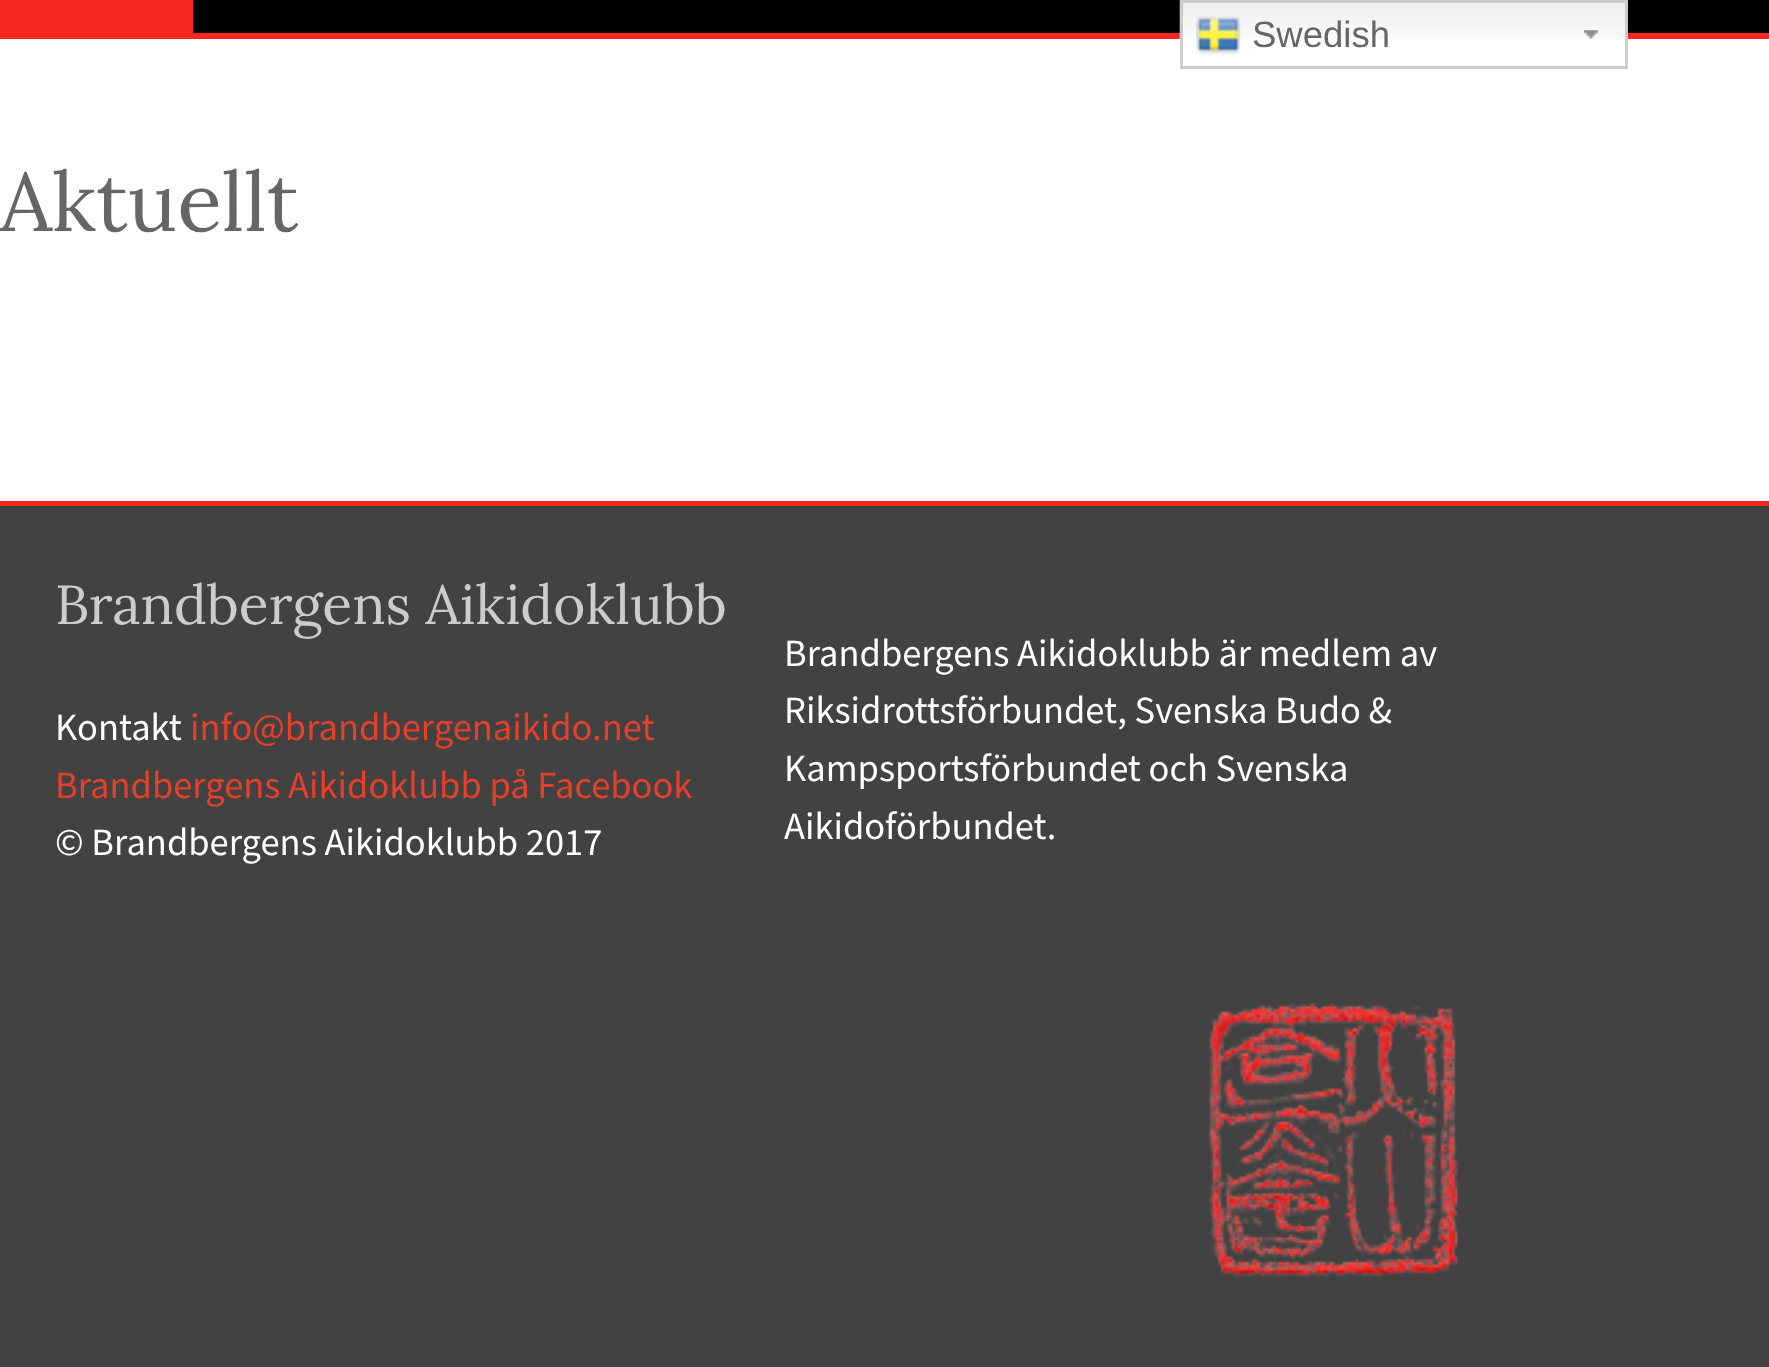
async function draw(canvas) {
  canvas.width = 1769
  canvas.height = 1367
  const ctx = canvas.getContext('2d')
  ctx.miterLimit = 4
  ctx.fontKerning = 'normal'
  async function loadImage(src) {
    const img = new Image()
    img.src = src
    await img.decode()
    return img
  }

  ctx.fillStyle = '#fff'
  ctx.fillRect(0, 0, 1769, 1367)
  ctx.fillStyle = '#000'
  ctx.fillRect(193, 0, 1576, 33)
  ctx.fillStyle = '#f8271e'
  ctx.fillRect(0, 33, 1769, 6)
  ctx.drawImage(await loadImage('image0.png'), 1179, 0, 446, 39)
  ctx.drawImage(await loadImage('image1.png'), 1584, 30, 14, 9)
  ctx.strokeStyle = '#ccc'
  ctx.lineWidth = 3
  ctx.strokeRect(1181.5, 1.5, 445, 66)
  ctx.drawImage(await loadImage('image2.png'), 1196, 16, 45, 39)
  ctx.font = '36.5px Liberation Sans'
  ctx.fillStyle = '#666'
  ctx.fillText('Swedish', 1252, 47)
  ctx.fillStyle = '#f8271e'
  ctx.fillRect(0, 0, 193, 33)
  ctx.font = '82.5px Lora'
  ctx.fillStyle = '#666'
  ctx.fillText('Aktuellt', 0, 231)
  ctx.fillStyle = '#f8271e'
  ctx.fillRect(0, 501, 1769, 5)
  ctx.fillStyle = '#424242'
  ctx.fillRect(0, 506, 1769, 861)
  ctx.font = '55px Lora'
  ctx.fillStyle = '#ccc'
  ctx.fillText('Brandbergens Aikidoklubb', 55, 624)
  ctx.font = '38.5px Mada'
  ctx.fillStyle = '#fff'
  ctx.fillText('Kontakt', 55, 740)
  ctx.fillStyle = '#e6402a'
  ctx.fillText('info@brandbergenaikido.net', 190, 740)
  ctx.fillText('Brandbergens Aikidoklubb på Facebook', 55, 798)
  ctx.fillStyle = '#fff'
  ctx.fillText('© Brandbergens Aikidoklubb 2017', 55, 855)
  ctx.fillText('Brandbergens Aikidoklubb är medlem av', 784, 666)
  ctx.fillText('Riksidrottsförbundet, Svenska Budo &', 784, 723)
  ctx.fillText('Kampsportsförbundet och Svenska', 784, 781)
  ctx.fillText('Aikidoförbundet.', 784, 839)
  ctx.drawImage(await loadImage('image3.png'), 1207, 1003, 251, 274)
}

draw(document.querySelector('canvas'))
